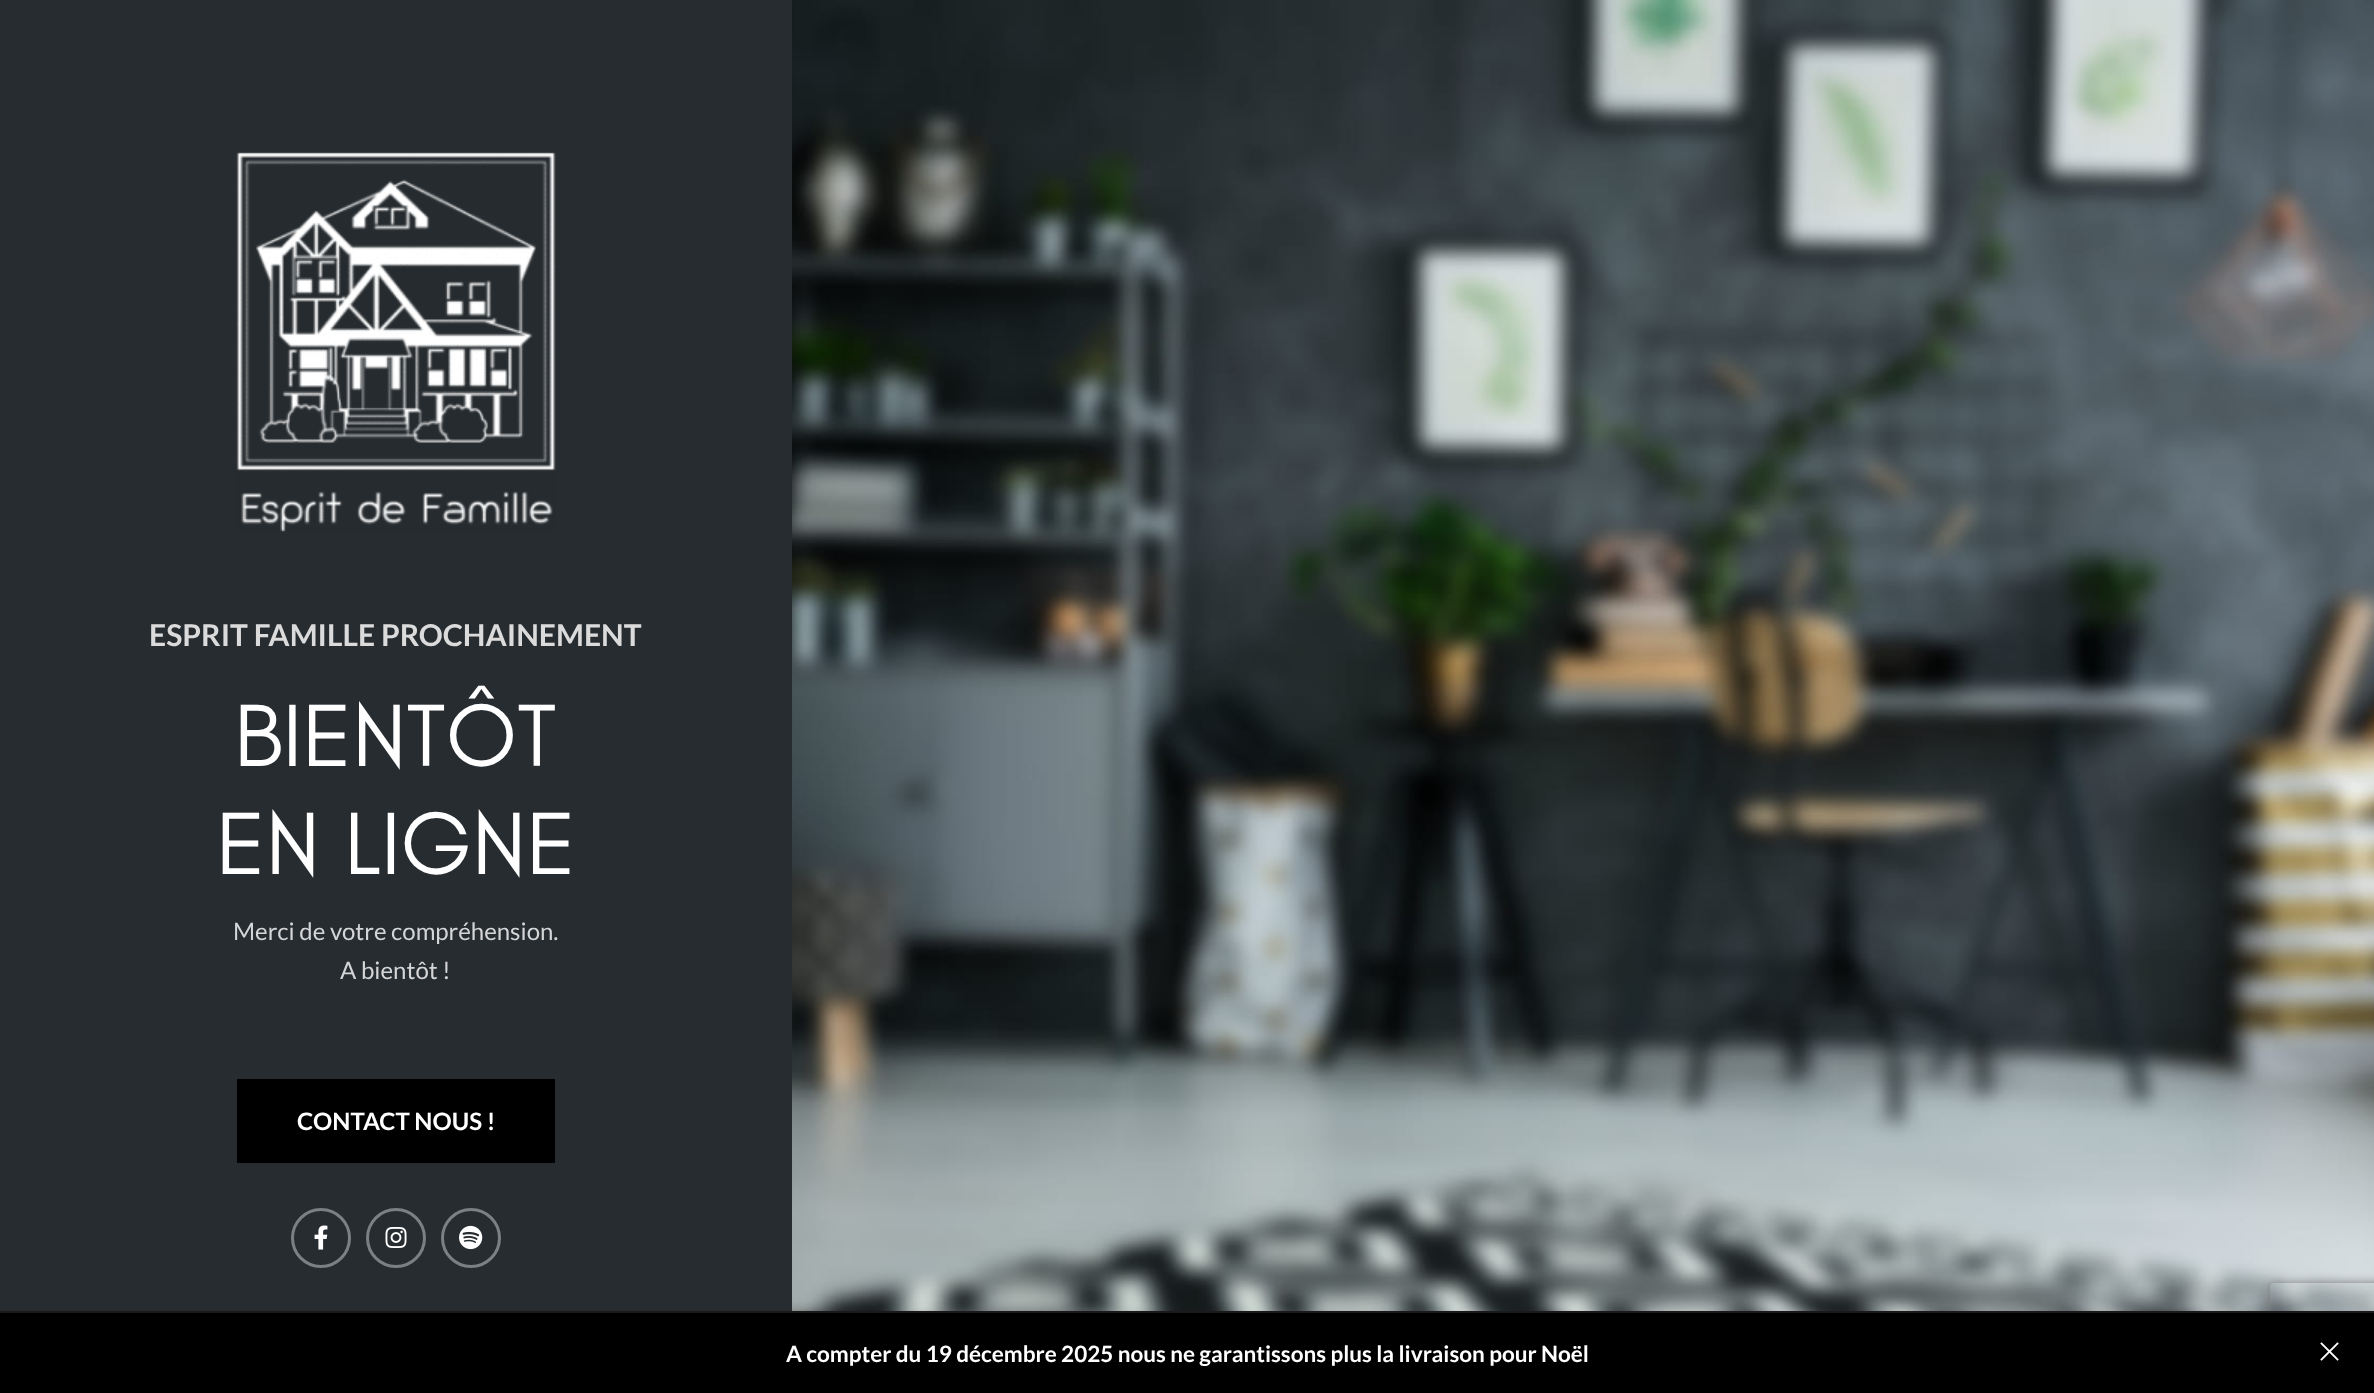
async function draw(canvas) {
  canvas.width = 2374
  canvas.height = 1393
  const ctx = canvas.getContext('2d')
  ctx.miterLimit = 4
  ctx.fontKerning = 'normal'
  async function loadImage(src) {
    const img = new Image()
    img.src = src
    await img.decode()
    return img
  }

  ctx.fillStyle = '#272c30'
  ctx.fillRect(0, 0, 2374, 1393)
  ctx.drawImage(await loadImage('image0.png'), 236, 152, 320, 380)
  ctx.font = 'bold 30px Lato'
  ctx.fillStyle = '#dbdbdb'
  ctx.fillText('ESPRIT FAMILLE PROCHAINEMENT', 149, 646)
  ctx.font = '90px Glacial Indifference'
  ctx.fillStyle = '#fff'
  ctx.fillText('BIENTÔT', 234, 766)
  ctx.fillText('EN LIGNE', 216, 874)
  ctx.font = '24px Lato'
  ctx.fillStyle = '#d4d5d6'
  ctx.fillText('Merci de votre compréhension.', 233, 940)
  ctx.fillText('A bientôt !', 340, 979)
  ctx.fillStyle = '#000'
  ctx.fillRect(237, 1079, 318, 84)
  ctx.font = 'bold 24px Lato'
  ctx.fillStyle = '#fff'
  ctx.fillText('CONTACT NOUS !', 297, 1130)
  ctx.beginPath()
  ctx.arc(321, 1238, 28.5, 0, 2 * Math.PI)
  ctx.strokeStyle = '#7d8083'
  ctx.lineWidth = 3
  ctx.stroke()
  ctx.drawImage(await loadImage('image1.png'), 314, 1225, 14, 25)
  ctx.beginPath()
  ctx.arc(396, 1238, 28.5, 0, 2 * Math.PI)
  ctx.stroke()
  ctx.drawImage(await loadImage('image2.png'), 385, 1227, 22, 21)
  ctx.beginPath()
  ctx.arc(471, 1238, 28.5, 0, 2 * Math.PI)
  ctx.stroke()
  ctx.drawImage(await loadImage('image3.png'), 459, 1225, 24, 25)
  ctx.drawImage(await loadImage('image4.png'), 792, 0, 1582, 1311)
  ctx.save()
  ctx.beginPath()
  ctx.moveTo(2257, 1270)
  ctx.lineTo(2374, 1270)
  ctx.lineTo(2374, 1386)
  ctx.lineTo(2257, 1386)
  ctx.closePath()
  ctx.moveTo(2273, 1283)
  ctx.lineTo(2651, 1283)
  ctx.bezierCurveTo(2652.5, 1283, 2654, 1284.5, 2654, 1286)
  ctx.lineTo(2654, 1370)
  ctx.bezierCurveTo(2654, 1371.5, 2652.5, 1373, 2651, 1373)
  ctx.lineTo(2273, 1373)
  ctx.bezierCurveTo(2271.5, 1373, 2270, 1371.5, 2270, 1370)
  ctx.lineTo(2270, 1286)
  ctx.bezierCurveTo(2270, 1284.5, 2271.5, 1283, 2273, 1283)
  ctx.closePath()
  ctx.clip('evenodd')
  ctx.fillStyle = '#808080'
  ctx.filter = 'blur(4px)'
  ctx.beginPath()
  ctx.roundRect(2270, 1283, 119, 90, 3)
  ctx.fill()
  ctx.filter = 'none'
  ctx.restore()
  ctx.fillStyle = '#000'
  ctx.fillRect(0, 1313, 2374, 80)
  ctx.fillStyle = '#1a1a1a'
  ctx.fillRect(0, 1311, 2374, 2)
  ctx.font = 'bold 22.5px Lato'
  ctx.fillStyle = '#fff'
  ctx.fillText('A compter du 19 décembre 2025 nous ne garantissons plus la livraison pour Noël', 786, 1362)
  ctx.drawImage(await loadImage('image5.png'), 2320, 1342, 19, 19)
}

draw(document.querySelector('canvas'))
